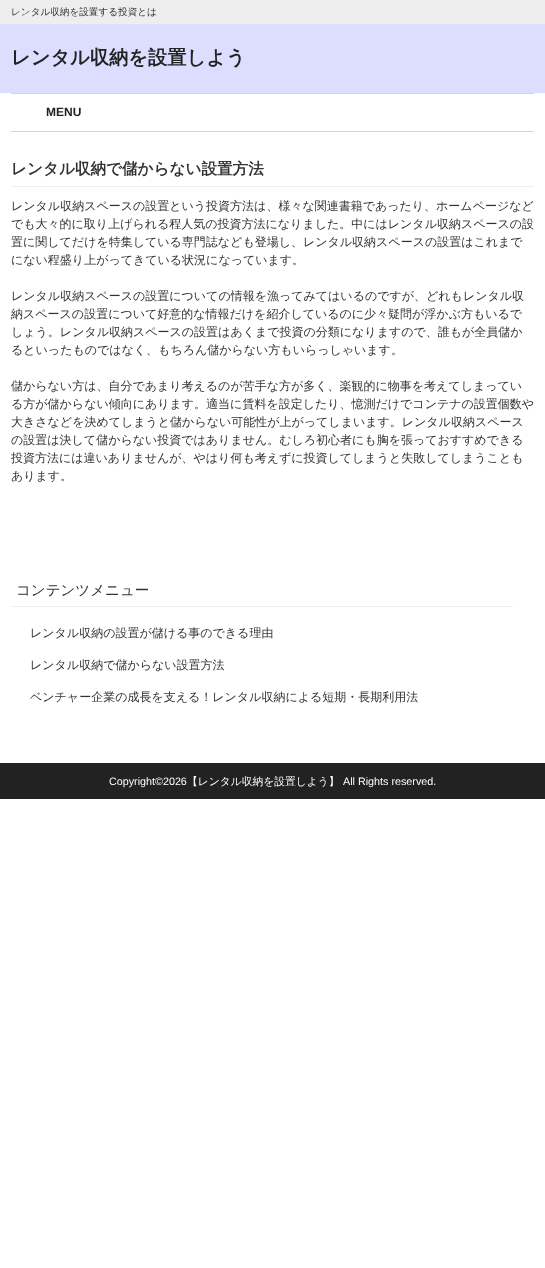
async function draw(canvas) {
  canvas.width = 545
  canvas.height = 1268
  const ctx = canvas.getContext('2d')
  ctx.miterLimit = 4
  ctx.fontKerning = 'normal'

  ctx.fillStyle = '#fff'
  ctx.fillRect(0, 0, 545, 1268)
  ctx.fillStyle = '#ddf'
  ctx.fillRect(0, 24, 545, 69)
  ctx.fillStyle = '#eee'
  ctx.fillRect(0, 0, 545, 24)
  ctx.font = '500 9.6px WenQuanYi Zen Hei'
  ctx.fillStyle = '#333'
  ctx.fillText('レンタル収納を設置する投資とは', 11, 15)
  ctx.font = 'bold 19.25px WenQuanYi Zen Hei'
  ctx.fillStyle = '#222'
  ctx.fillText('レンタル収納を設置しよう', 11, 64)
  ctx.fillStyle = '#d5d5d5'
  ctx.fillRect(11, 93, 523, 1)
  ctx.fillRect(11, 131, 523, 1)
  ctx.font = 'bold 12px Liberation Sans'
  ctx.fillStyle = '#222'
  ctx.fillText('MENU', 46, 116)
  ctx.fillStyle = '#eee'
  ctx.fillRect(11, 186, 523, 1)
  ctx.font = 'bold 15.6px WenQuanYi Zen Hei'
  ctx.fillStyle = '#333'
  ctx.fillText('レンタル収納で儲からない設置方法', 11, 174)
  ctx.font = '500 12px WenQuanYi Zen Hei'
  ctx.fillText('レンタル収納スペースの設置という投資方法は、様々な関連書籍であったり、ホームページなど', 11, 210)
  ctx.fillText('でも大々的に取り上げられる程人気の投資方法になりました。中にはレンタル収納スペースの設', 11, 228)
  ctx.fillText('置に関してだけを特集している専門誌なども登場し、レンタル収納スペースの設置はこれまで', 11, 246)
  ctx.fillText('にない程盛り上がってきている状況になっています。', 11, 264)
  ctx.fillText('レンタル収納スペースの設置についての情報を漁ってみてはいるのですが、どれもレンタル収', 11, 300)
  ctx.fillText('納スペースの設置について好意的な情報だけを紹介しているのに少々疑問が浮かぶ方もいるで', 11, 318)
  ctx.fillText('しょう。レンタル収納スペースの設置はあくまで投資の分類になりますので、誰もが全員儲か', 11, 336)
  ctx.fillText('るといったものではなく、もちろん儲からない方もいらっしゃいます。', 11, 354)
  ctx.fillText('儲からない方は、自分であまり考えるのが苦手な方が多く、楽観的に物事を考えてしまってい', 11, 390)
  ctx.fillText('る方が儲からない傾向にあります。適当に賃料を設定したり、憶測だけでコンテナの設置個数や', 11, 408)
  ctx.fillText('大きさなどを決めてしまうと儲からない可能性が上がってしまいます。レンタル収納スペース', 11, 426)
  ctx.fillText('の設置は決して儲からない投資ではありません。むしろ初心者にも胸を張っておすすめできる', 11, 444)
  ctx.fillText('投資方法には違いありませんが、やはり何も考えずに投資してしまうと失敗してしまうことも', 11, 462)
  ctx.fillText('あります。', 11, 480)
  ctx.fillStyle = '#eee'
  ctx.fillRect(11, 606, 502, 1)
  ctx.font = '500 14.5px WenQuanYi Zen Hei'
  ctx.fillStyle = '#333'
  ctx.fillText('コンテンツメニュー', 16, 595)
  ctx.font = '500 12px WenQuanYi Zen Hei'
  ctx.fillText('レンタル収納の設置が儲ける事のできる理由', 30, 637)
  ctx.fillText('レンタル収納で儲からない設置方法', 30, 669)
  ctx.fillText('ベンチャー企業の成長を支える！レンタル収納による短期・長期利用法', 30, 701)
  ctx.fillStyle = '#222'
  ctx.fillRect(0, 763, 545, 36)
  ctx.font = '10.75px Liberation Sans'
  ctx.fillStyle = '#fff'
  ctx.fillText('Copyright©2026', 109, 785)
  ctx.font = '500 10.75px WenQuanYi Zen Hei'
  ctx.fillText('【レンタル収納を設置しよう】', 187, 785)
  ctx.font = '10.75px Liberation Sans'
  ctx.fillText('All Rights reserved.', 343, 785)
}

draw(document.querySelector('canvas'))
